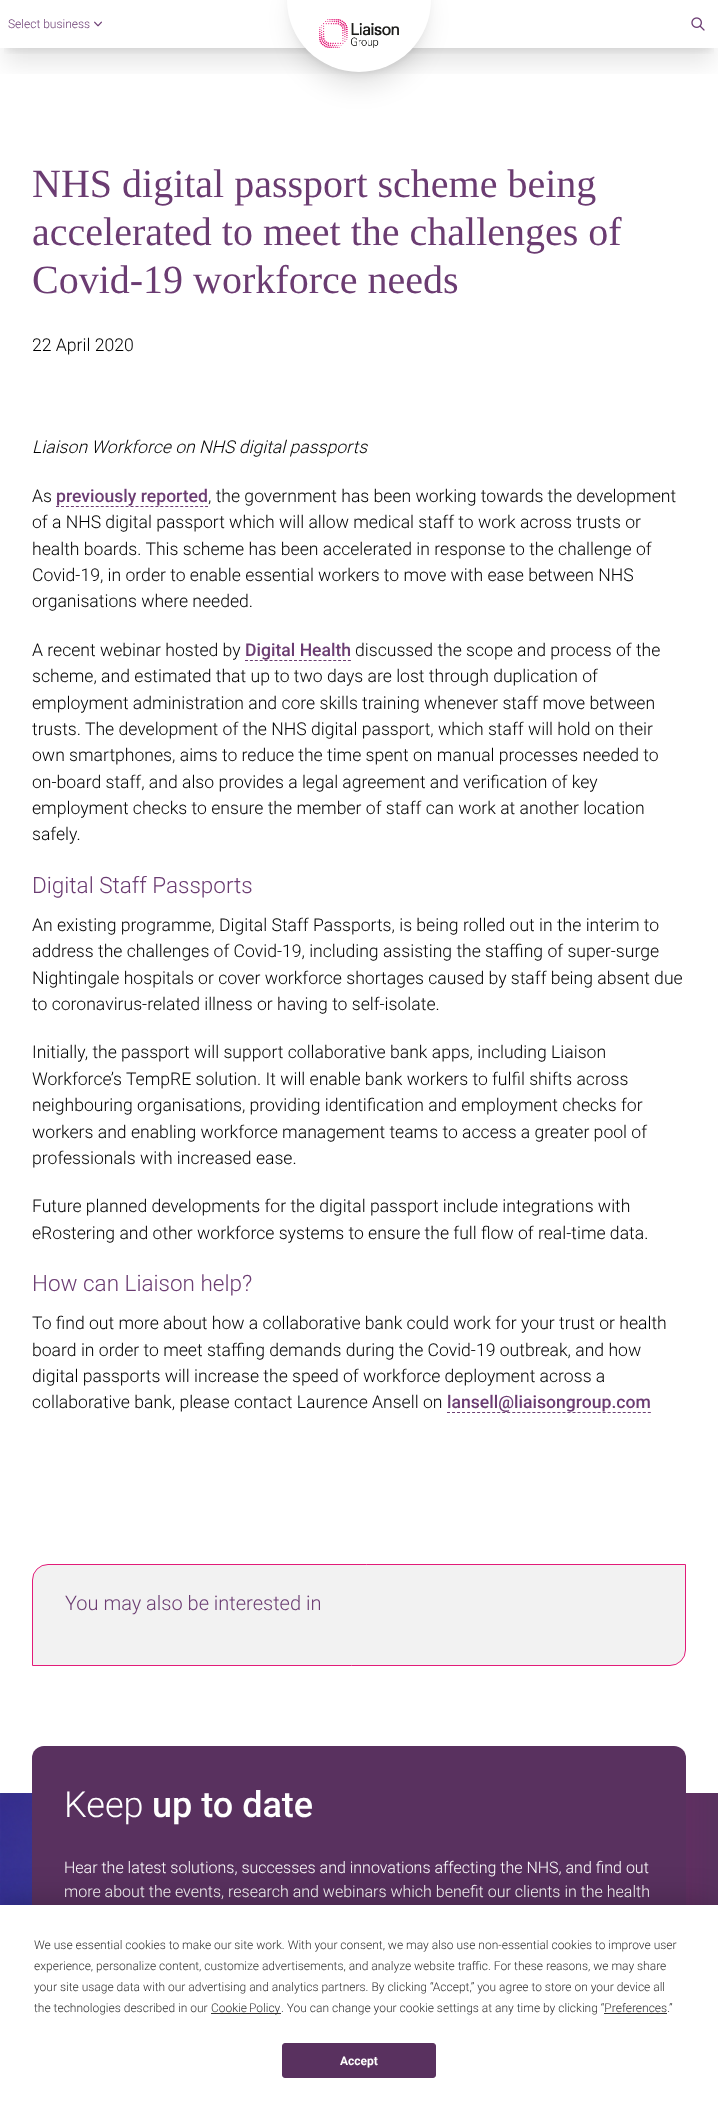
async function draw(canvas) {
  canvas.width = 718
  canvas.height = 2108
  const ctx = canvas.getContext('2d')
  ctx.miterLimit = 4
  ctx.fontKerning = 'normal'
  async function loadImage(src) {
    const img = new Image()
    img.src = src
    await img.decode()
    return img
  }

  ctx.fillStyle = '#fff'
  ctx.fillRect(0, 0, 718, 2108)
  ctx.save()
  ctx.beginPath()
  ctx.rect(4, 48, 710, 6)
  ctx.clip()
  ctx.fillStyle = '#0000001a'
  ctx.filter = 'blur(5px)'
  ctx.beginPath()
  ctx.rect(6, 14, 706, 36)
  ctx.fill()
  ctx.filter = 'none'
  ctx.restore()
  ctx.save()
  ctx.beginPath()
  ctx.rect(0, 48, 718, 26)
  ctx.clip()
  ctx.fillStyle = '#0000001a'
  ctx.filter = 'blur(12.5px)'
  ctx.beginPath()
  ctx.rect(5, 25, 708, 38)
  ctx.fill()
  ctx.filter = 'none'
  ctx.restore()
  ctx.font = '300 12px Roboto'
  ctx.fillStyle = '#6b3c72'
  ctx.fillText('Select business', 8, 28)
  ctx.drawImage(await loadImage('image0.png'), 94, 21, 8, 6)
  ctx.drawImage(await loadImage('image1.png'), 691, 17, 14, 14)
  ctx.fillStyle = '#0000001a'
  ctx.filter = 'blur(5px)'
  ctx.beginPath()
  ctx.roundRect(293, -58, 132, 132, 66)
  ctx.fill()
  ctx.filter = 'none'
  ctx.filter = 'blur(12.5px)'
  ctx.beginPath()
  ctx.roundRect(292, -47, 134, 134, 67)
  ctx.fill()
  ctx.filter = 'none'
  ctx.fillStyle = '#fff'
  ctx.beginPath()
  ctx.arc(359, 0, 72, 0, 2 * Math.PI)
  ctx.fill()
  ctx.drawImage(await loadImage('image2.png'), 319, 19, 80, 29)
  ctx.font = '40px Liberation Serif'
  ctx.fillStyle = '#6b3c72'
  ctx.fillText('NHS digital passport scheme being', 32, 197)
  ctx.fillText('accelerated to meet the challenges of', 32, 245)
  ctx.fillText('Covid-19 workforce needs', 32, 293)
  ctx.font = '300 17.6px Roboto'
  ctx.fillStyle = '#000'
  ctx.fillText('22 April 2020', 32, 351)
  ctx.font = 'italic 300 17.6px Roboto'
  ctx.fillText('Liaison Workforce on NHS digital passports', 32, 453)
  ctx.font = '300 17.6px Roboto'
  ctx.fillText('As', 32, 502)
  ctx.font = '500 17.6px Roboto'
  ctx.fillStyle = '#6b3c72'
  ctx.fillText('previously reported', 56, 502)
  ctx.beginPath()
  ctx.moveTo(56, 506.5)
  ctx.lineTo(208, 506.5)
  ctx.strokeStyle = '#6b3c72'
  ctx.setLineDash([3, 1.97])
  ctx.stroke()
  ctx.font = '300 17.6px Roboto'
  ctx.fillStyle = '#000'
  ctx.fillText(', the government has been working towards the development', 208, 502)
  ctx.fillText('of a NHS digital passport which will allow medical staff to work across trusts or', 32, 528)
  ctx.fillText('health boards. This scheme has been accelerated in response to the challenge of', 32, 555)
  ctx.fillText('Covid-19, in order to enable essential workers to move with ease between NHS', 32, 581)
  ctx.fillText('organisations where needed.', 32, 607)
  ctx.fillText('A recent webinar hosted by', 32, 656)
  ctx.font = '500 17.6px Roboto'
  ctx.fillStyle = '#6b3c72'
  ctx.fillText('Digital Health', 245, 656)
  ctx.beginPath()
  ctx.moveTo(245, 660.5)
  ctx.lineTo(351, 660.5)
  ctx.setLineDash([3, 1.9])
  ctx.stroke()
  ctx.font = '300 17.6px Roboto'
  ctx.fillStyle = '#000'
  ctx.fillText('discussed the scope and process of the', 355, 656)
  ctx.fillText('scheme, and estimated that up to two days are lost through duplication of', 32, 682)
  ctx.fillText('employment administration and core skills training whenever staff move between', 32, 709)
  ctx.fillText('trusts. The development of the NHS digital passport, which staff will hold on their', 32, 735)
  ctx.fillText('own smartphones, aims to reduce the time spent on manual processes needed to', 32, 761)
  ctx.fillText('on-board staff, and also provides a legal agreement and verification of key', 32, 788)
  ctx.fillText('employment checks to ensure the member of staff can work at another location', 32, 814)
  ctx.fillText('safely.', 32, 840)
  ctx.font = '300 22.5px Roboto'
  ctx.fillStyle = '#6b3c72'
  ctx.fillText('Digital Staff Passports', 32, 893)
  ctx.font = '300 17.6px Roboto'
  ctx.fillStyle = '#000'
  ctx.fillText('An existing programme, Digital Staff Passports, is being rolled out in the interim to', 32, 931)
  ctx.fillText('address the challenges of Covid-19, including assisting the staffing of super-surge', 32, 957)
  ctx.fillText('Nightingale hospitals or cover workforce shortages caused by staff being absent due', 32, 984)
  ctx.fillText('to coronavirus-related illness or having to self-isolate.', 32, 1010)
  ctx.fillText('Initially, the passport will support collaborative bank apps, including Liaison', 32, 1058)
  ctx.fillText('Workforce’s TempRE solution. It will enable bank workers to fulfil shifts across', 32, 1085)
  ctx.fillText('neighbouring organisations, providing identification and employment checks for', 32, 1111)
  ctx.fillText('workers and enabling workforce management teams to access a greater pool of', 32, 1138)
  ctx.fillText('professionals with increased ease.', 32, 1164)
  ctx.fillText('Future planned developments for the digital passport include integrations with', 32, 1212)
  ctx.fillText('eRostering and other workforce systems to ensure the full flow of real-time data.', 32, 1239)
  ctx.font = '300 22.5px Roboto'
  ctx.fillStyle = '#6b3c72'
  ctx.fillText('How can Liaison help?', 32, 1291)
  ctx.font = '300 17.6px Roboto'
  ctx.fillStyle = '#000'
  ctx.fillText('To find out more about how a collaborative bank could work for your trust or health', 32, 1329)
  ctx.fillText('board in order to meet staffing demands during the Covid-19 outbreak, and how', 32, 1356)
  ctx.fillText('digital passports will increase the speed of workforce deployment across a', 32, 1382)
  ctx.fillText('collaborative bank, please contact Laurence Ansell on', 32, 1408)
  ctx.font = '500 17.6px Roboto'
  ctx.fillStyle = '#6b3c72'
  ctx.fillText('lansell@liaisongroup.com', 447, 1408)
  ctx.beginPath()
  ctx.moveTo(447, 1412.5)
  ctx.lineTo(651, 1412.5)
  ctx.setLineDash([3, 2.02])
  ctx.stroke()
  ctx.fillStyle = '#f2f2f2'
  ctx.beginPath()
  ctx.roundRect(32.5, 1564.5, 653, 101, [15.5, 0, 15.5, 0])
  ctx.fill()
  ctx.strokeStyle = '#e31c79'
  ctx.setLineDash([])
  ctx.stroke()
  ctx.font = '300 20px Roboto'
  ctx.fillStyle = '#6b3c72'
  ctx.fillText('You may also be interested in', 65, 1610)
  ctx.drawImage(await loadImage('image3.png'), 0, 1793, 718, 112)
  ctx.fillStyle = '#59315f'
  ctx.beginPath()
  ctx.roundRect(32, 1746, 654, 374, 12)
  ctx.fill()
  ctx.font = '300 36px Roboto'
  ctx.fillStyle = '#fff'
  ctx.fillText('Keep', 64, 1817)
  ctx.font = '500 36px Roboto'
  ctx.fillText('up to date', 152, 1817)
  ctx.font = '300 16px Roboto'
  ctx.fillText('Hear the latest solutions, successes and innovations affecting the NHS, and find out', 64, 1873)
  ctx.fillText('more about the events, research and webinars which benefit our clients in the health', 64, 1897)
  ctx.fillStyle = '#00000040'
  ctx.filter = 'blur(17.5px)'
  ctx.beginPath()
  ctx.rect(0, 1905, 718, 203)
  ctx.fill()
  ctx.filter = 'none'
  ctx.fillStyle = '#fff'
  ctx.fillRect(0, 1905, 718, 203)
  ctx.font = '300 12px Roboto'
  ctx.fillStyle = '#303030'
  ctx.fillText('We use essential cookies to make our site work. With your consent, we may also use non-essential cookies to improve user', 34, 1949)
  ctx.fillText('experience, personalize content, customize advertisements, and analyze website traffic. For these reasons, we may share', 34, 1970)
  ctx.fillText('your site usage data with our advertising and analytics partners. By clicking “Accept,” you agree to store on your device all', 34, 1991)
  ctx.fillText('the technologies described in our', 34, 2012)
  ctx.fillRect(211, 2013, 70, 1)
  ctx.wordSpacing = '-1px'
  ctx.fillText('Cookie Policy', 211, 2012)
  ctx.wordSpacing = '0px'
  ctx.fillText('. You can change your cookie settings at any time by clicking “Preferences.”', 281, 2012)
  ctx.fillRect(604, 2013, 63, 1)
  ctx.fillStyle = '#59315f'
  ctx.beginPath()
  ctx.roundRect(282.5, 2043.5, 153, 34, 2.5)
  ctx.fill()
  ctx.strokeStyle = '#59315f'
  ctx.stroke()
  ctx.font = 'bold 12px Roboto'
  ctx.fillStyle = '#fff'
  ctx.fillText('Accept', 340, 2065)
}

draw(document.querySelector('canvas'))
